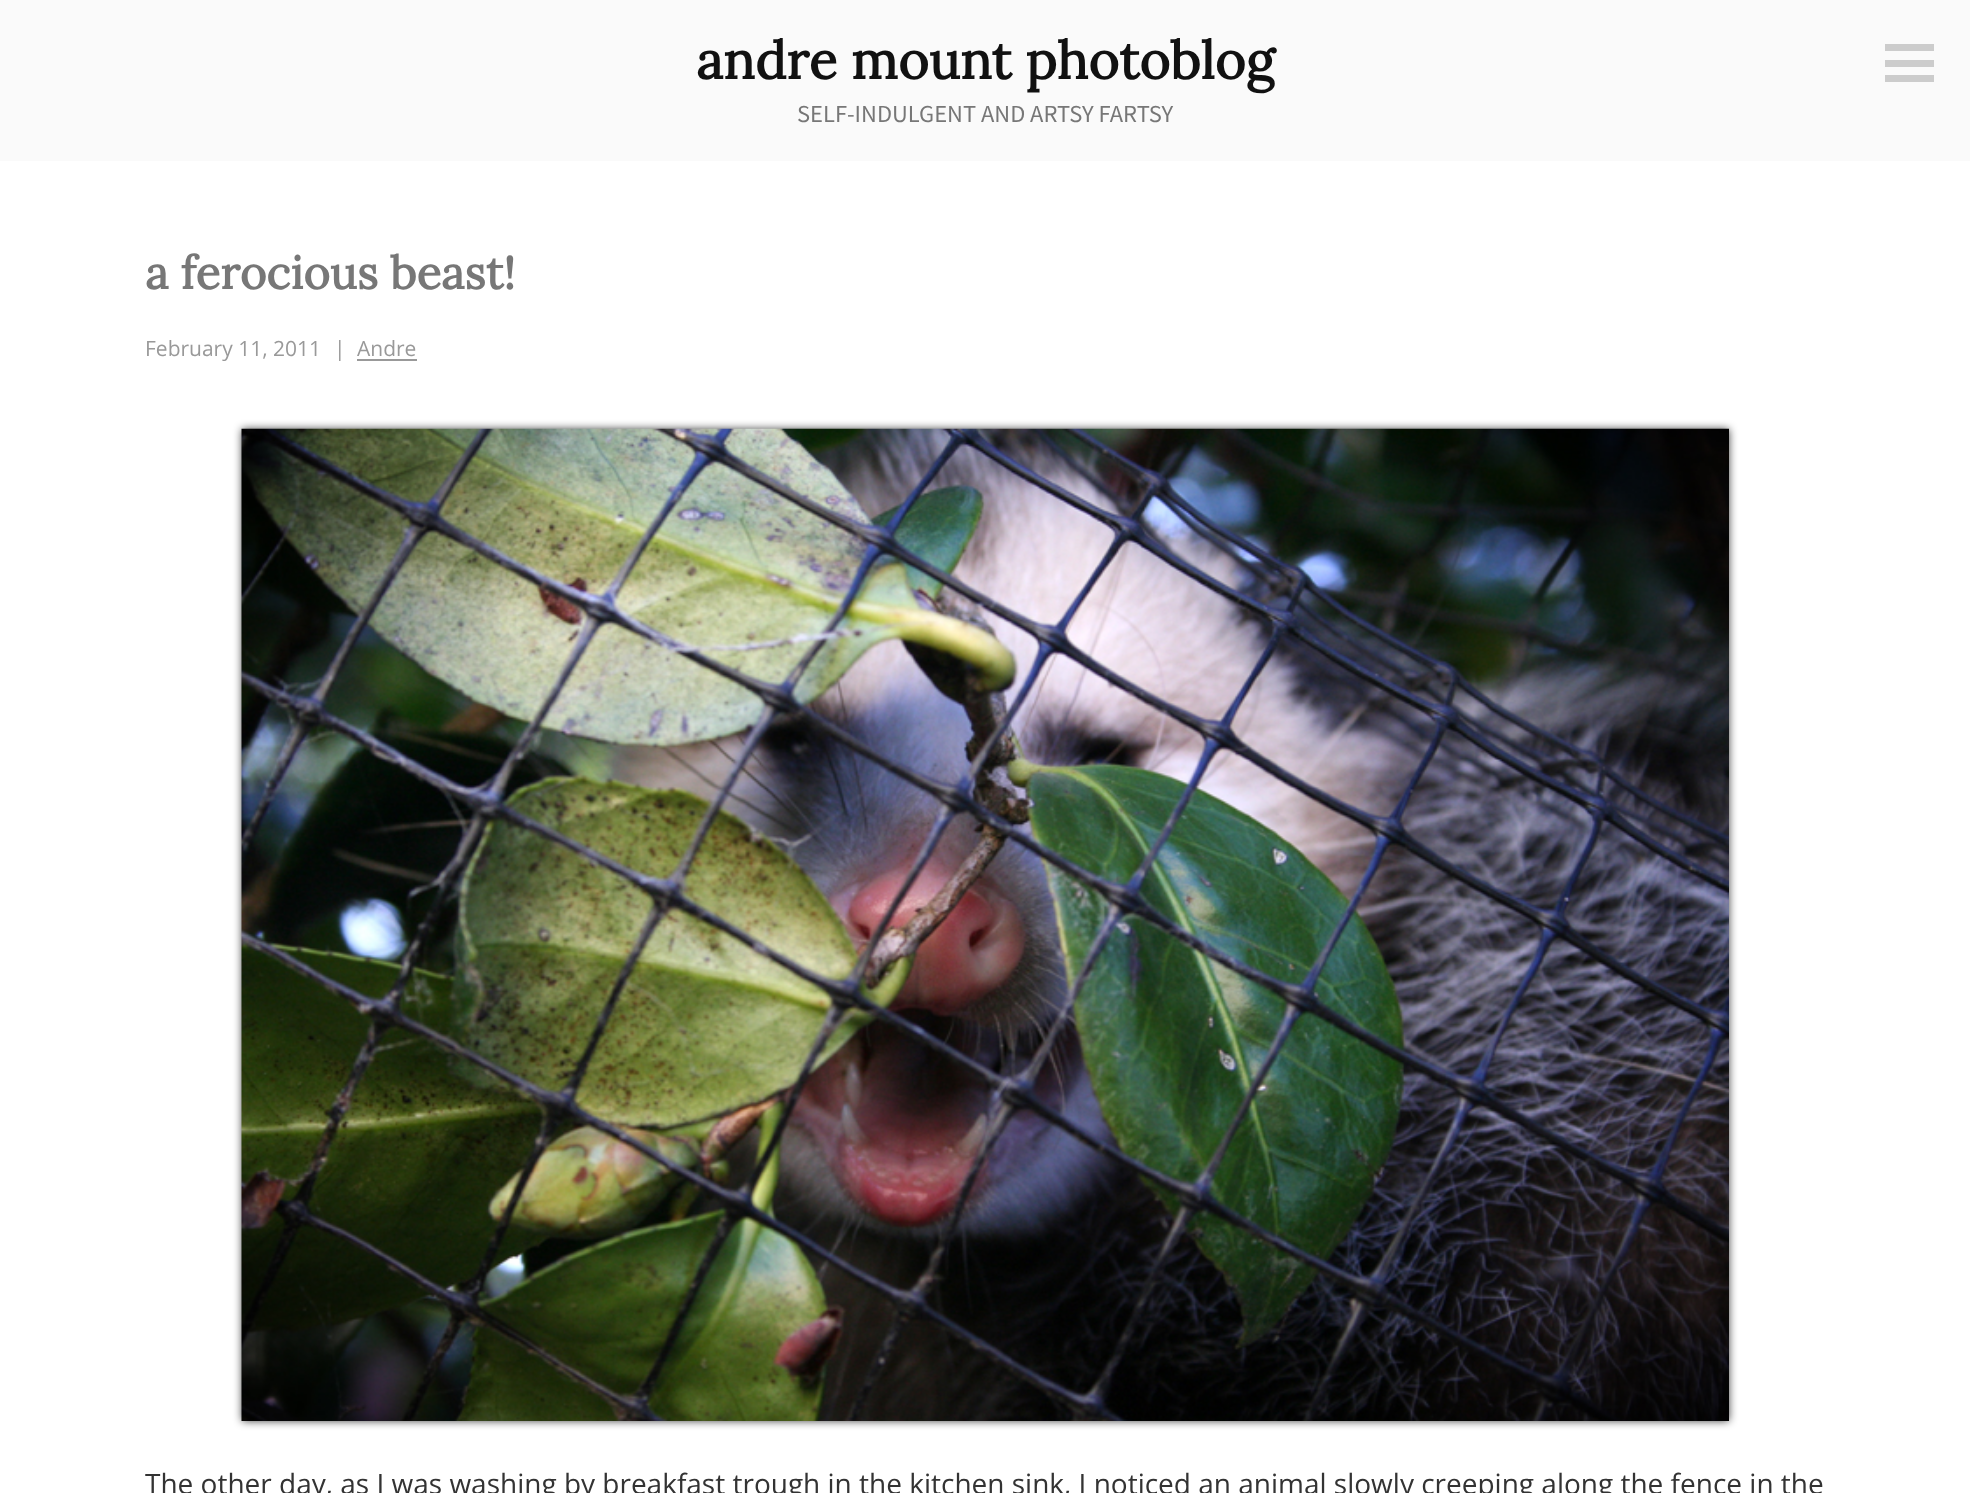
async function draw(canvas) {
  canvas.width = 1970
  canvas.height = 1493
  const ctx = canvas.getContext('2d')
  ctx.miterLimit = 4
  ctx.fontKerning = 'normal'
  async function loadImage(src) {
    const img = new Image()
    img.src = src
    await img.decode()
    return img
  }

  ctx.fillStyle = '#fff'
  ctx.fillRect(0, 0, 1970, 1493)
  ctx.fillStyle = '#fafafa'
  ctx.fillRect(0, 0, 1970, 161)
  ctx.font = 'bold 52.5px Lora'
  ctx.fillStyle = '#111'
  ctx.fillText('andre mount photoblog', 696, 79)
  ctx.font = '24.5px Source Sans Pro'
  ctx.fillStyle = '#777'
  ctx.fillText('SELF-INDULGENT AND ARTSY FARTSY', 797, 122)
  ctx.fillStyle = '#ccc'
  ctx.fillRect(1885, 44, 49, 7)
  ctx.fillRect(1885, 60, 49, 7)
  ctx.fillRect(1885, 75, 49, 7)
  ctx.font = 'bold 45.5px Lora'
  ctx.fillStyle = '#777'
  ctx.fillText('a ferocious beast!', 145, 289)
  ctx.font = '21px Open Sans'
  ctx.fillStyle = '#999'
  ctx.fillText('February 11, 2011', 145, 356)
  ctx.fillText('|', 334, 356)
  ctx.fillText('Andre', 357, 356)
  ctx.fillRect(357, 359, 60, 2)
  ctx.fillStyle = '#000000bf'
  ctx.filter = 'blur(4.5px)'
  ctx.beginPath()
  ctx.rect(242, 429, 1487, 992)
  ctx.fill()
  ctx.filter = 'none'
  ctx.drawImage(await loadImage('image0.png'), 241, 428, 1488, 993)
  ctx.font = '28px Open Sans'
  ctx.fillStyle = '#333'
  ctx.fillText('The other day, as I was washing by breakfast trough in the kitchen sink, I noticed an animal slowly creeping along the fence in the', 145, 1494)
}

draw(document.querySelector('canvas'))
